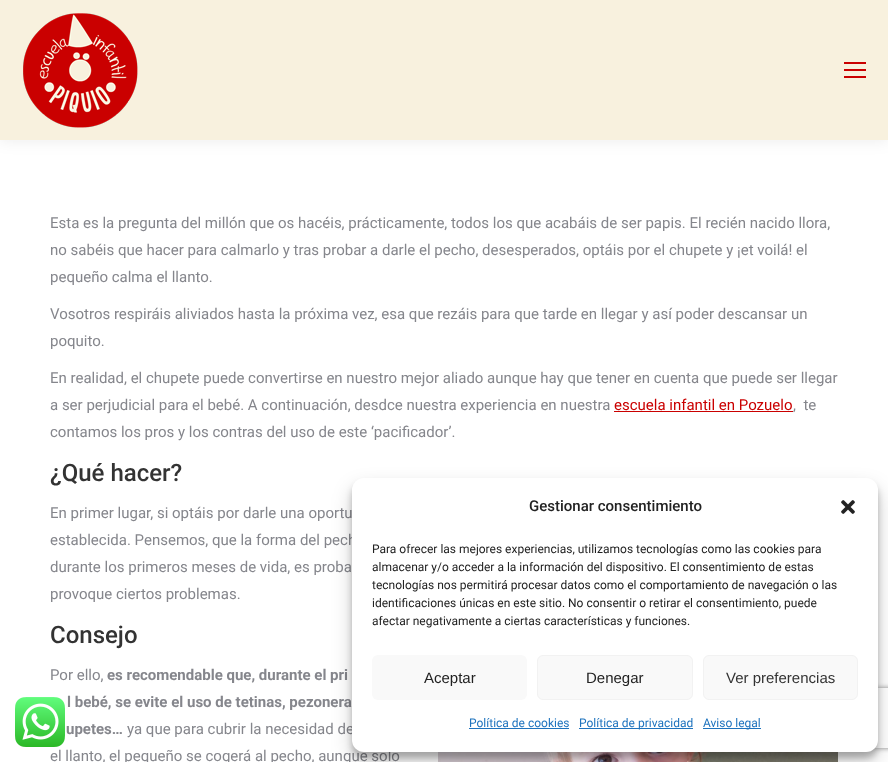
async function draw(canvas) {
  canvas.width = 888
  canvas.height = 762
  const ctx = canvas.getContext('2d')
  ctx.miterLimit = 4
  ctx.fontKerning = 'normal'
  async function loadImage(src) {
    const img = new Image()
    img.src = src
    await img.decode()
    return img
  }

  ctx.fillStyle = '#fff'
  ctx.fillRect(0, 0, 888, 762)
  ctx.fillStyle = '#00000012'
  ctx.filter = 'blur(7.5px)'
  ctx.beginPath()
  ctx.rect(-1, -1, 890, 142)
  ctx.fill()
  ctx.filter = 'none'
  ctx.fillStyle = '#f8f1de'
  ctx.fillRect(0, 0, 888, 140)
  ctx.drawImage(await loadImage('image0.png'), 23, 13, 115, 115)
  ctx.fillStyle = '#ca0000'
  ctx.fillRect(844, 62, 22, 2)
  ctx.fillRect(844, 69, 22, 2)
  ctx.fillRect(844, 76, 22, 2)
  ctx.font = '15px Roboto'
  ctx.fillStyle = '#85868c'
  ctx.fillText('Esta es la pregunta del millón que os hacéis, prácticamente, todos los que acabáis de ser papis. El recién nacido llora,', 50, 228)
  ctx.fillText('no sabéis que hacer para calmarlo y tras probar a darle el pecho, desesperados, optáis por el chupete y ¡et voilá! el', 50, 255)
  ctx.fillText('pequeño calma el llanto.', 50, 282)
  ctx.fillText('Vosotros respiráis aliviados hasta la próxima vez, esa que rezáis para que tarde en llegar y así poder descansar un', 50, 319)
  ctx.fillText('poquito.', 50, 346)
  ctx.fillText('En realidad, el chupete puede convertirse en nuestro mejor aliado aunque hay que tener en cuenta que puede ser llegar', 50, 383)
  ctx.fillText('a ser perjudicial para el bebé. A continuación, desdce nuestra experiencia en nuestra', 50, 410)
  ctx.fillStyle = '#ca0000'
  ctx.fillText('escuela infantil en Pozuelo', 614, 410)
  ctx.fillRect(614, 411, 179, 1)
  ctx.fillStyle = '#85868c'
  ctx.fillText(',  te', 793, 410)
  ctx.fillText('contamos los pros y los contras del uso de este ‘pacificador’.', 50, 437)
  ctx.font = '500 24px Roboto'
  ctx.fillStyle = '#333'
  ctx.fillText('¿Qué hacer?', 50, 481)
  ctx.font = '15px Roboto'
  ctx.fillStyle = '#85868c'
  ctx.fillText('En primer lugar, si optáis por darle una oportu', 50, 518)
  ctx.fillText('establecida. Pensemos, que la forma del pech', 50, 545)
  ctx.fillText('durante los primeros meses de vida, es proba', 50, 572)
  ctx.fillText('provoque ciertos problemas.', 50, 599)
  ctx.font = '500 24px Roboto'
  ctx.fillStyle = '#333'
  ctx.fillText('Consejo', 50, 643)
  ctx.font = '15px Roboto'
  ctx.fillStyle = '#85868c'
  ctx.fillText('Por ello,', 50, 680)
  ctx.font = 'bold 15px Roboto'
  ctx.fillText('es recomendable que, durante el pri', 107, 680)
  ctx.fillText('l bebé, se evite el uso de tetinas, pezonera', 67, 707)
  ctx.fillText('upetes…', 66, 734)
  ctx.font = '15px Roboto'
  ctx.fillText('ya que para cubrir la necesidad de', 127, 734)
  ctx.fillText('el llanto, el pequeño se cogerá al pecho, aunque solo', 50, 761)
  ctx.drawImage(await loadImage('image1.png'), 438, 752, 400, 10)
  ctx.drawImage(await loadImage('image2.png'), 15, 697, 50, 50)
  ctx.fillStyle = '#0000003b'
  ctx.filter = 'blur(3px)'
  ctx.beginPath()
  ctx.roundRect(352, 484, 526, 274, 12)
  ctx.fill()
  ctx.filter = 'none'
  ctx.fillStyle = '#00000030'
  ctx.filter = 'blur(10px)'
  ctx.beginPath()
  ctx.roundRect(352, 488, 526, 274, 12)
  ctx.fill()
  ctx.filter = 'none'
  ctx.save()
  ctx.beginPath()
  ctx.moveTo(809, 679)
  ctx.lineTo(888, 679)
  ctx.lineTo(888, 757)
  ctx.lineTo(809, 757)
  ctx.closePath()
  ctx.moveTo(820, 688)
  ctx.lineTo(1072, 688)
  ctx.bezierCurveTo(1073, 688, 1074, 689, 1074, 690)
  ctx.lineTo(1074, 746)
  ctx.bezierCurveTo(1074, 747, 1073, 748, 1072, 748)
  ctx.lineTo(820, 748)
  ctx.bezierCurveTo(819, 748, 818, 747, 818, 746)
  ctx.lineTo(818, 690)
  ctx.bezierCurveTo(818, 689, 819, 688, 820, 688)
  ctx.closePath()
  ctx.clip('evenodd')
  ctx.fillStyle = '#808080'
  ctx.filter = 'blur(2.5px)'
  ctx.beginPath()
  ctx.roundRect(818, 688, 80, 60, 2)
  ctx.fill()
  ctx.filter = 'none'
  ctx.restore()
  ctx.fillStyle = '#fff'
  ctx.beginPath()
  ctx.roundRect(352, 478, 526, 274, 12)
  ctx.fill()
  ctx.font = '500 15px Roboto'
  ctx.fillStyle = '#222'
  ctx.fillText('Gestionar consentimiento', 529, 511)
  ctx.drawImage(await loadImage('image3.png'), 841, 500, 14, 14)
  ctx.font = '12px Roboto'
  ctx.fillText('Para ofrecer las mejores experiencias, utilizamos tecnologías como las cookies para', 372, 553)
  ctx.fillText('almacenar y/o acceder a la información del dispositivo. El consentimiento de estas', 372, 571)
  ctx.fillText('tecnologías nos permitirá procesar datos como el comportamiento de navegación o las', 372, 589)
  ctx.fillText('identificaciones únicas en este sitio. No consentir o retirar el consentimiento, puede', 372, 607)
  ctx.fillText('afectar negativamente a ciertas características y funciones.', 372, 625)
  ctx.fillStyle = '#f9f9f9'
  ctx.beginPath()
  ctx.roundRect(372, 655, 155, 45, 6)
  ctx.fill()
  ctx.font = '15px Liberation Sans'
  ctx.fillStyle = '#222'
  ctx.fillText('Aceptar', 424, 683)
  ctx.fillStyle = '#f9f9f9'
  ctx.beginPath()
  ctx.roundRect(537.5, 655.5, 155, 44, 5.5)
  ctx.fill()
  ctx.strokeStyle = '#f2f2f2'
  ctx.stroke()
  ctx.fillStyle = '#222'
  ctx.fillText('Denegar', 586, 683)
  ctx.fillStyle = '#f9f9f9'
  ctx.beginPath()
  ctx.roundRect(703.5, 655.5, 154, 44, 5.5)
  ctx.fill()
  ctx.stroke()
  ctx.fillStyle = '#333'
  ctx.fillText('Ver preferencias', 726, 683)
  ctx.font = '12px Roboto'
  ctx.fillStyle = '#1e73be'
  ctx.fillText('Política de cookies', 469, 727)
  ctx.fillRect(469, 728, 100, 1)
  ctx.fillRect(579, 728, 114, 1)
  ctx.fillText('Política de privacidad', 579, 727)
  ctx.fillRect(703, 728, 58, 1)
  ctx.fillText('Aviso legal', 703, 727)
}

draw(document.querySelector('canvas'))
